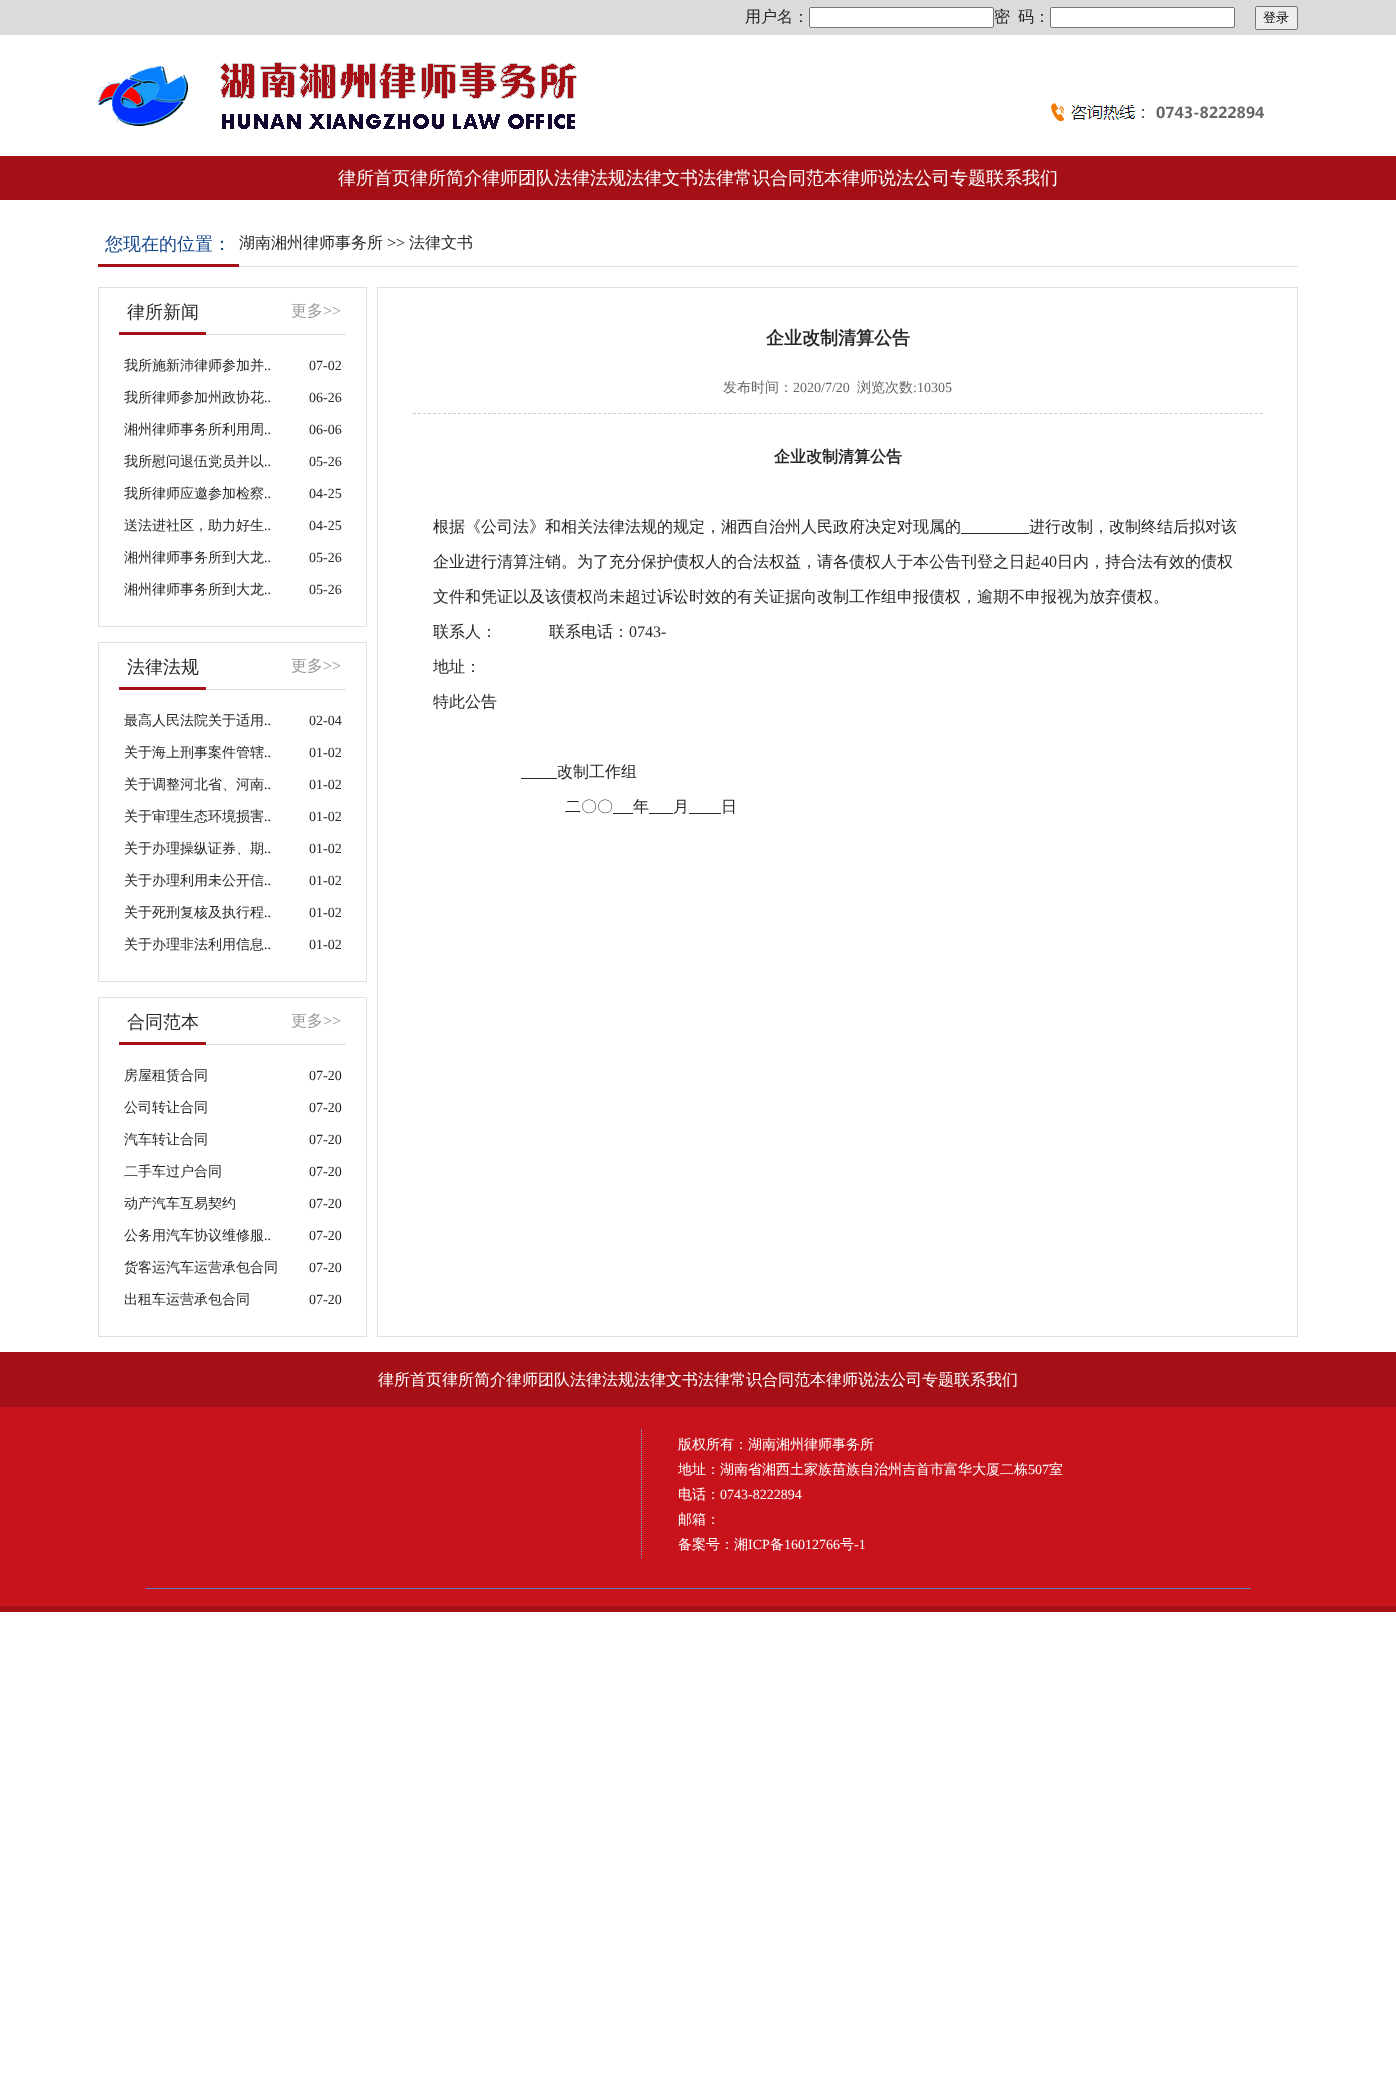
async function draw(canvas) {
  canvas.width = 1396
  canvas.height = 2078
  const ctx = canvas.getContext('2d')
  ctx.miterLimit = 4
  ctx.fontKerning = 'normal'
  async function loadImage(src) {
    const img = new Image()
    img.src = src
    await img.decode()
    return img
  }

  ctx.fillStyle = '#fff'
  ctx.fillRect(0, 0, 1396, 2078)
  ctx.fillStyle = '#dbdbdb'
  ctx.fillRect(0, 0, 1396, 35)
  ctx.font = '500 16px WenQuanYi Zen Hei'
  ctx.fillStyle = '#272727'
  ctx.fillText('用户名：', 745, 22)
  ctx.fillStyle = '#fff'
  ctx.beginPath()
  ctx.roundRect(809.5, 7.5, 184, 20, 1.5)
  ctx.fill()
  ctx.strokeStyle = '#767676'
  ctx.stroke()
  ctx.fillStyle = '#272727'
  ctx.fillText('密', 994, 22)
  ctx.fillText('码：', 1018, 22)
  ctx.fillStyle = '#fff'
  ctx.beginPath()
  ctx.roundRect(1050.5, 7.5, 184, 20, 1.5)
  ctx.fill()
  ctx.stroke()
  ctx.fillStyle = '#efefef'
  ctx.beginPath()
  ctx.roundRect(1255.5, 6.5, 42, 23, 1.5)
  ctx.fill()
  ctx.stroke()
  ctx.font = '500 13px WenQuanYi Zen Hei'
  ctx.fillStyle = '#000'
  ctx.fillText('登录', 1263, 22)
  ctx.drawImage(await loadImage('image0.png'), 98, 62, 479, 67)
  ctx.drawImage(await loadImage('image1.png'), 1051, 103, 213, 18)
  ctx.fillStyle = '#a41016'
  ctx.fillRect(0, 156, 1396, 44)
  ctx.font = '500 18px WenQuanYi Zen Hei'
  ctx.fillStyle = '#fff'
  ctx.fillText('律所首页律所简介律师团队法律法规法律文书法律常识合同范本律师说法公司专题联系我们', 338, 184)
  ctx.fillStyle = '#a41016'
  ctx.fillRect(98, 264, 141, 3)
  ctx.fillStyle = '#12468c'
  ctx.fillText('您现在的位置：', 105, 250)
  ctx.fillStyle = '#e0e0e0'
  ctx.fillRect(239, 266, 1059, 1)
  ctx.font = '500 16px WenQuanYi Zen Hei'
  ctx.fillStyle = '#272727'
  ctx.fillText('湖南湘州律师事务所', 239, 248)
  ctx.font = '16px Liberation Serif'
  ctx.fillText('>>', 387, 248)
  ctx.font = '500 16px WenQuanYi Zen Hei'
  ctx.fillText('法律文书', 409, 248)
  ctx.strokeStyle = '#e0e0e0'
  ctx.strokeRect(98.5, 287.5, 268, 339)
  ctx.fillStyle = '#a41016'
  ctx.fillRect(119, 332, 87, 3)
  ctx.font = '500 18px WenQuanYi Zen Hei'
  ctx.fillStyle = '#272727'
  ctx.fillText('律所新闻', 127, 318)
  ctx.fillStyle = '#e0e0e0'
  ctx.fillRect(206, 334, 140, 1)
  ctx.font = '500 16px WenQuanYi Zen Hei'
  ctx.fillStyle = '#999'
  ctx.fillText('更多', 291, 316)
  ctx.font = '16px Liberation Serif'
  ctx.fillText('>>', 323, 316)
  ctx.font = '500 14px WenQuanYi Zen Hei'
  ctx.fillStyle = '#272727'
  ctx.fillText('我所施新沛律师参加并', 124, 370)
  ctx.font = '14px Liberation Serif'
  ctx.fillText('..', 264, 370)
  ctx.fillText('07-02', 309, 370)
  ctx.font = '500 14px WenQuanYi Zen Hei'
  ctx.fillText('我所律师参加州政协花', 124, 402)
  ctx.font = '14px Liberation Serif'
  ctx.fillText('..', 264, 402)
  ctx.fillText('06-26', 309, 402)
  ctx.font = '500 14px WenQuanYi Zen Hei'
  ctx.fillText('湘州律师事务所利用周', 124, 434)
  ctx.font = '14px Liberation Serif'
  ctx.fillText('..', 264, 434)
  ctx.fillText('06-06', 309, 434)
  ctx.font = '500 14px WenQuanYi Zen Hei'
  ctx.fillText('我所慰问退伍党员并以', 124, 466)
  ctx.font = '14px Liberation Serif'
  ctx.fillText('..', 264, 466)
  ctx.fillText('05-26', 309, 466)
  ctx.font = '500 14px WenQuanYi Zen Hei'
  ctx.fillText('我所律师应邀参加检察', 124, 498)
  ctx.font = '14px Liberation Serif'
  ctx.fillText('..', 264, 498)
  ctx.fillText('04-25', 309, 498)
  ctx.font = '500 14px WenQuanYi Zen Hei'
  ctx.fillText('送法进社区，助力好生', 124, 530)
  ctx.font = '14px Liberation Serif'
  ctx.fillText('..', 264, 530)
  ctx.fillText('04-25', 309, 530)
  ctx.font = '500 14px WenQuanYi Zen Hei'
  ctx.fillText('湘州律师事务所到大龙', 124, 562)
  ctx.font = '14px Liberation Serif'
  ctx.fillText('..', 264, 562)
  ctx.fillText('05-26', 309, 562)
  ctx.font = '500 14px WenQuanYi Zen Hei'
  ctx.fillText('湘州律师事务所到大龙', 124, 594)
  ctx.font = '14px Liberation Serif'
  ctx.fillText('..', 264, 594)
  ctx.fillText('05-26', 309, 594)
  ctx.strokeRect(98.5, 642.5, 268, 339)
  ctx.fillStyle = '#a41016'
  ctx.fillRect(119, 687, 87, 3)
  ctx.font = '500 18px WenQuanYi Zen Hei'
  ctx.fillStyle = '#272727'
  ctx.fillText('法律法规', 127, 673)
  ctx.fillStyle = '#e0e0e0'
  ctx.fillRect(206, 689, 140, 1)
  ctx.font = '500 16px WenQuanYi Zen Hei'
  ctx.fillStyle = '#999'
  ctx.fillText('更多', 291, 671)
  ctx.font = '16px Liberation Serif'
  ctx.fillText('>>', 323, 671)
  ctx.font = '500 14px WenQuanYi Zen Hei'
  ctx.fillStyle = '#272727'
  ctx.fillText('最高人民法院关于适用', 124, 725)
  ctx.font = '14px Liberation Serif'
  ctx.fillText('..', 264, 725)
  ctx.fillText('02-04', 309, 725)
  ctx.font = '500 14px WenQuanYi Zen Hei'
  ctx.fillText('关于海上刑事案件管辖', 124, 757)
  ctx.font = '14px Liberation Serif'
  ctx.fillText('..', 264, 757)
  ctx.fillText('01-02', 309, 757)
  ctx.font = '500 14px WenQuanYi Zen Hei'
  ctx.fillText('关于调整河北省、河南', 124, 789)
  ctx.font = '14px Liberation Serif'
  ctx.fillText('..', 264, 789)
  ctx.fillText('01-02', 309, 789)
  ctx.font = '500 14px WenQuanYi Zen Hei'
  ctx.fillText('关于审理生态环境损害', 124, 821)
  ctx.font = '14px Liberation Serif'
  ctx.fillText('..', 264, 821)
  ctx.fillText('01-02', 309, 821)
  ctx.font = '500 14px WenQuanYi Zen Hei'
  ctx.fillText('关于办理操纵证券、期', 124, 853)
  ctx.font = '14px Liberation Serif'
  ctx.fillText('..', 264, 853)
  ctx.fillText('01-02', 309, 853)
  ctx.font = '500 14px WenQuanYi Zen Hei'
  ctx.fillText('关于办理利用未公开信', 124, 885)
  ctx.font = '14px Liberation Serif'
  ctx.fillText('..', 264, 885)
  ctx.fillText('01-02', 309, 885)
  ctx.font = '500 14px WenQuanYi Zen Hei'
  ctx.fillText('关于死刑复核及执行程', 124, 917)
  ctx.font = '14px Liberation Serif'
  ctx.fillText('..', 264, 917)
  ctx.fillText('01-02', 309, 917)
  ctx.font = '500 14px WenQuanYi Zen Hei'
  ctx.fillText('关于办理非法利用信息', 124, 949)
  ctx.font = '14px Liberation Serif'
  ctx.fillText('..', 264, 949)
  ctx.fillText('01-02', 309, 949)
  ctx.strokeRect(98.5, 997.5, 268, 339)
  ctx.fillStyle = '#a41016'
  ctx.fillRect(119, 1042, 87, 3)
  ctx.font = '500 18px WenQuanYi Zen Hei'
  ctx.fillStyle = '#272727'
  ctx.fillText('合同范本', 127, 1028)
  ctx.fillStyle = '#e0e0e0'
  ctx.fillRect(206, 1044, 140, 1)
  ctx.font = '500 16px WenQuanYi Zen Hei'
  ctx.fillStyle = '#999'
  ctx.fillText('更多', 291, 1026)
  ctx.font = '16px Liberation Serif'
  ctx.fillText('>>', 323, 1026)
  ctx.font = '500 14px WenQuanYi Zen Hei'
  ctx.fillStyle = '#272727'
  ctx.fillText('房屋租赁合同', 124, 1080)
  ctx.font = '14px Liberation Serif'
  ctx.fillText('07-20', 309, 1080)
  ctx.font = '500 14px WenQuanYi Zen Hei'
  ctx.fillText('公司转让合同', 124, 1112)
  ctx.font = '14px Liberation Serif'
  ctx.fillText('07-20', 309, 1112)
  ctx.font = '500 14px WenQuanYi Zen Hei'
  ctx.fillText('汽车转让合同', 124, 1144)
  ctx.font = '14px Liberation Serif'
  ctx.fillText('07-20', 309, 1144)
  ctx.font = '500 14px WenQuanYi Zen Hei'
  ctx.fillText('二手车过户合同', 124, 1176)
  ctx.font = '14px Liberation Serif'
  ctx.fillText('07-20', 309, 1176)
  ctx.font = '500 14px WenQuanYi Zen Hei'
  ctx.fillText('动产汽车互易契约', 124, 1208)
  ctx.font = '14px Liberation Serif'
  ctx.fillText('07-20', 309, 1208)
  ctx.font = '500 14px WenQuanYi Zen Hei'
  ctx.fillText('公务用汽车协议维修服', 124, 1240)
  ctx.font = '14px Liberation Serif'
  ctx.fillText('..', 264, 1240)
  ctx.fillText('07-20', 309, 1240)
  ctx.font = '500 14px WenQuanYi Zen Hei'
  ctx.fillText('货客运汽车运营承包合同', 124, 1272)
  ctx.font = '14px Liberation Serif'
  ctx.fillText('07-20', 309, 1272)
  ctx.font = '500 14px WenQuanYi Zen Hei'
  ctx.fillText('出租车运营承包合同', 124, 1304)
  ctx.font = '14px Liberation Serif'
  ctx.fillText('07-20', 309, 1304)
  ctx.strokeRect(377.5, 287.5, 920, 1049)
  ctx.beginPath()
  ctx.moveTo(413, 413.5)
  ctx.lineTo(1263, 413.5)
  ctx.strokeStyle = '#ccc'
  ctx.setLineDash([3, 2.01])
  ctx.stroke()
  ctx.font = 'bold 18px WenQuanYi Zen Hei'
  ctx.fillText('企业改制清算公告', 766, 344)
  ctx.font = '500 14px WenQuanYi Zen Hei'
  ctx.fillStyle = '#666'
  ctx.fillText('发布时间：', 723, 392)
  ctx.font = '14px Liberation Serif'
  ctx.fillText('2020/7/20', 793, 392)
  ctx.font = '500 14px WenQuanYi Zen Hei'
  ctx.fillText('浏览次数', 857, 392)
  ctx.font = '14px Liberation Serif'
  ctx.fillText(':10305', 913, 392)
  ctx.font = 'bold 16px WenQuanYi Zen Hei'
  ctx.fillStyle = '#272727'
  ctx.fillText('企业改制清算公告', 774, 462)
  ctx.font = '500 16px WenQuanYi Zen Hei'
  ctx.fillText('根据《公司法》和相关法律法规的规定，湘西自治州人民政府决定对现属的', 433, 532)
  ctx.fillRect(961, 533, 68, 1)
  ctx.fillText('进行改制，改制终结后拟对该', 1029, 532)
  ctx.fillText('企业进行清算注销。为了充分保护债权人的合法权益，请各债权人于本公告刊登之日起', 433, 567)
  ctx.font = '16px Liberation Serif'
  ctx.fillText('40', 1041, 567)
  ctx.font = '500 16px WenQuanYi Zen Hei'
  ctx.fillText('日内，持合法有效的债权', 1057, 567)
  ctx.fillText('文件和凭证以及该债权尚未超过诉讼时效的有关证据向改制工作组申报债权，逾期不申报视为放弃债权。', 433, 602)
  ctx.fillText('联系人：', 433, 637)
  ctx.fillText('联系电话：', 549, 637)
  ctx.font = '16px Liberation Serif'
  ctx.fillText('0743-', 629, 637)
  ctx.font = '500 16px WenQuanYi Zen Hei'
  ctx.fillText('地址：', 433, 672)
  ctx.fillText('特此公告', 433, 707)
  ctx.fillRect(521, 778, 36, 1)
  ctx.fillText('改制工作组', 557, 777)
  ctx.fillText('二〇〇', 565, 812)
  ctx.fillRect(613, 813, 20, 1)
  ctx.fillText('年', 633, 812)
  ctx.fillRect(649, 813, 24, 1)
  ctx.fillText('月', 673, 812)
  ctx.fillRect(689, 813, 32, 1)
  ctx.fillText('日', 721, 812)
  ctx.drawImage(await loadImage('image2.png'), 0, 1352, 1396, 260)
  ctx.fillStyle = '#fff'
  ctx.fillText('律所首页律所简介律师团队法律法规法律文书法律常识合同范本律师说法公司专题联系我们', 378, 1385)
  ctx.drawImage(await loadImage('image3.png'), 641, 1429, 1, 129)
  ctx.font = '500 14px WenQuanYi Zen Hei'
  ctx.fillText('版权所有：湖南湘州律师事务所', 678, 1449)
  ctx.fillText('地址：湖南省湘西土家族苗族自治州吉首市富华大厦二栋', 678, 1474)
  ctx.font = '14px Liberation Serif'
  ctx.fillText('507', 1028, 1474)
  ctx.font = '500 14px WenQuanYi Zen Hei'
  ctx.fillText('室', 1049, 1474)
  ctx.fillText('电话：', 678, 1499)
  ctx.font = '14px Liberation Serif'
  ctx.fillText('0743-8222894', 720, 1499)
  ctx.font = '500 14px WenQuanYi Zen Hei'
  ctx.fillText('邮箱：', 678, 1524)
  ctx.fillText('备案号：湘', 678, 1549)
  ctx.font = '14px Liberation Serif'
  ctx.fillText('ICP', 748, 1549)
  ctx.font = '500 14px WenQuanYi Zen Hei'
  ctx.fillText('备', 770, 1549)
  ctx.font = '14px Liberation Serif'
  ctx.fillText('16012766', 784, 1549)
  ctx.font = '500 14px WenQuanYi Zen Hei'
  ctx.fillText('号', 840, 1549)
  ctx.font = '14px Liberation Serif'
  ctx.fillText('-1', 854, 1549)
  ctx.fillStyle = '#527ebb'
  ctx.fillRect(146, 1588, 1105, 1)
}

draw(document.querySelector('canvas'))
